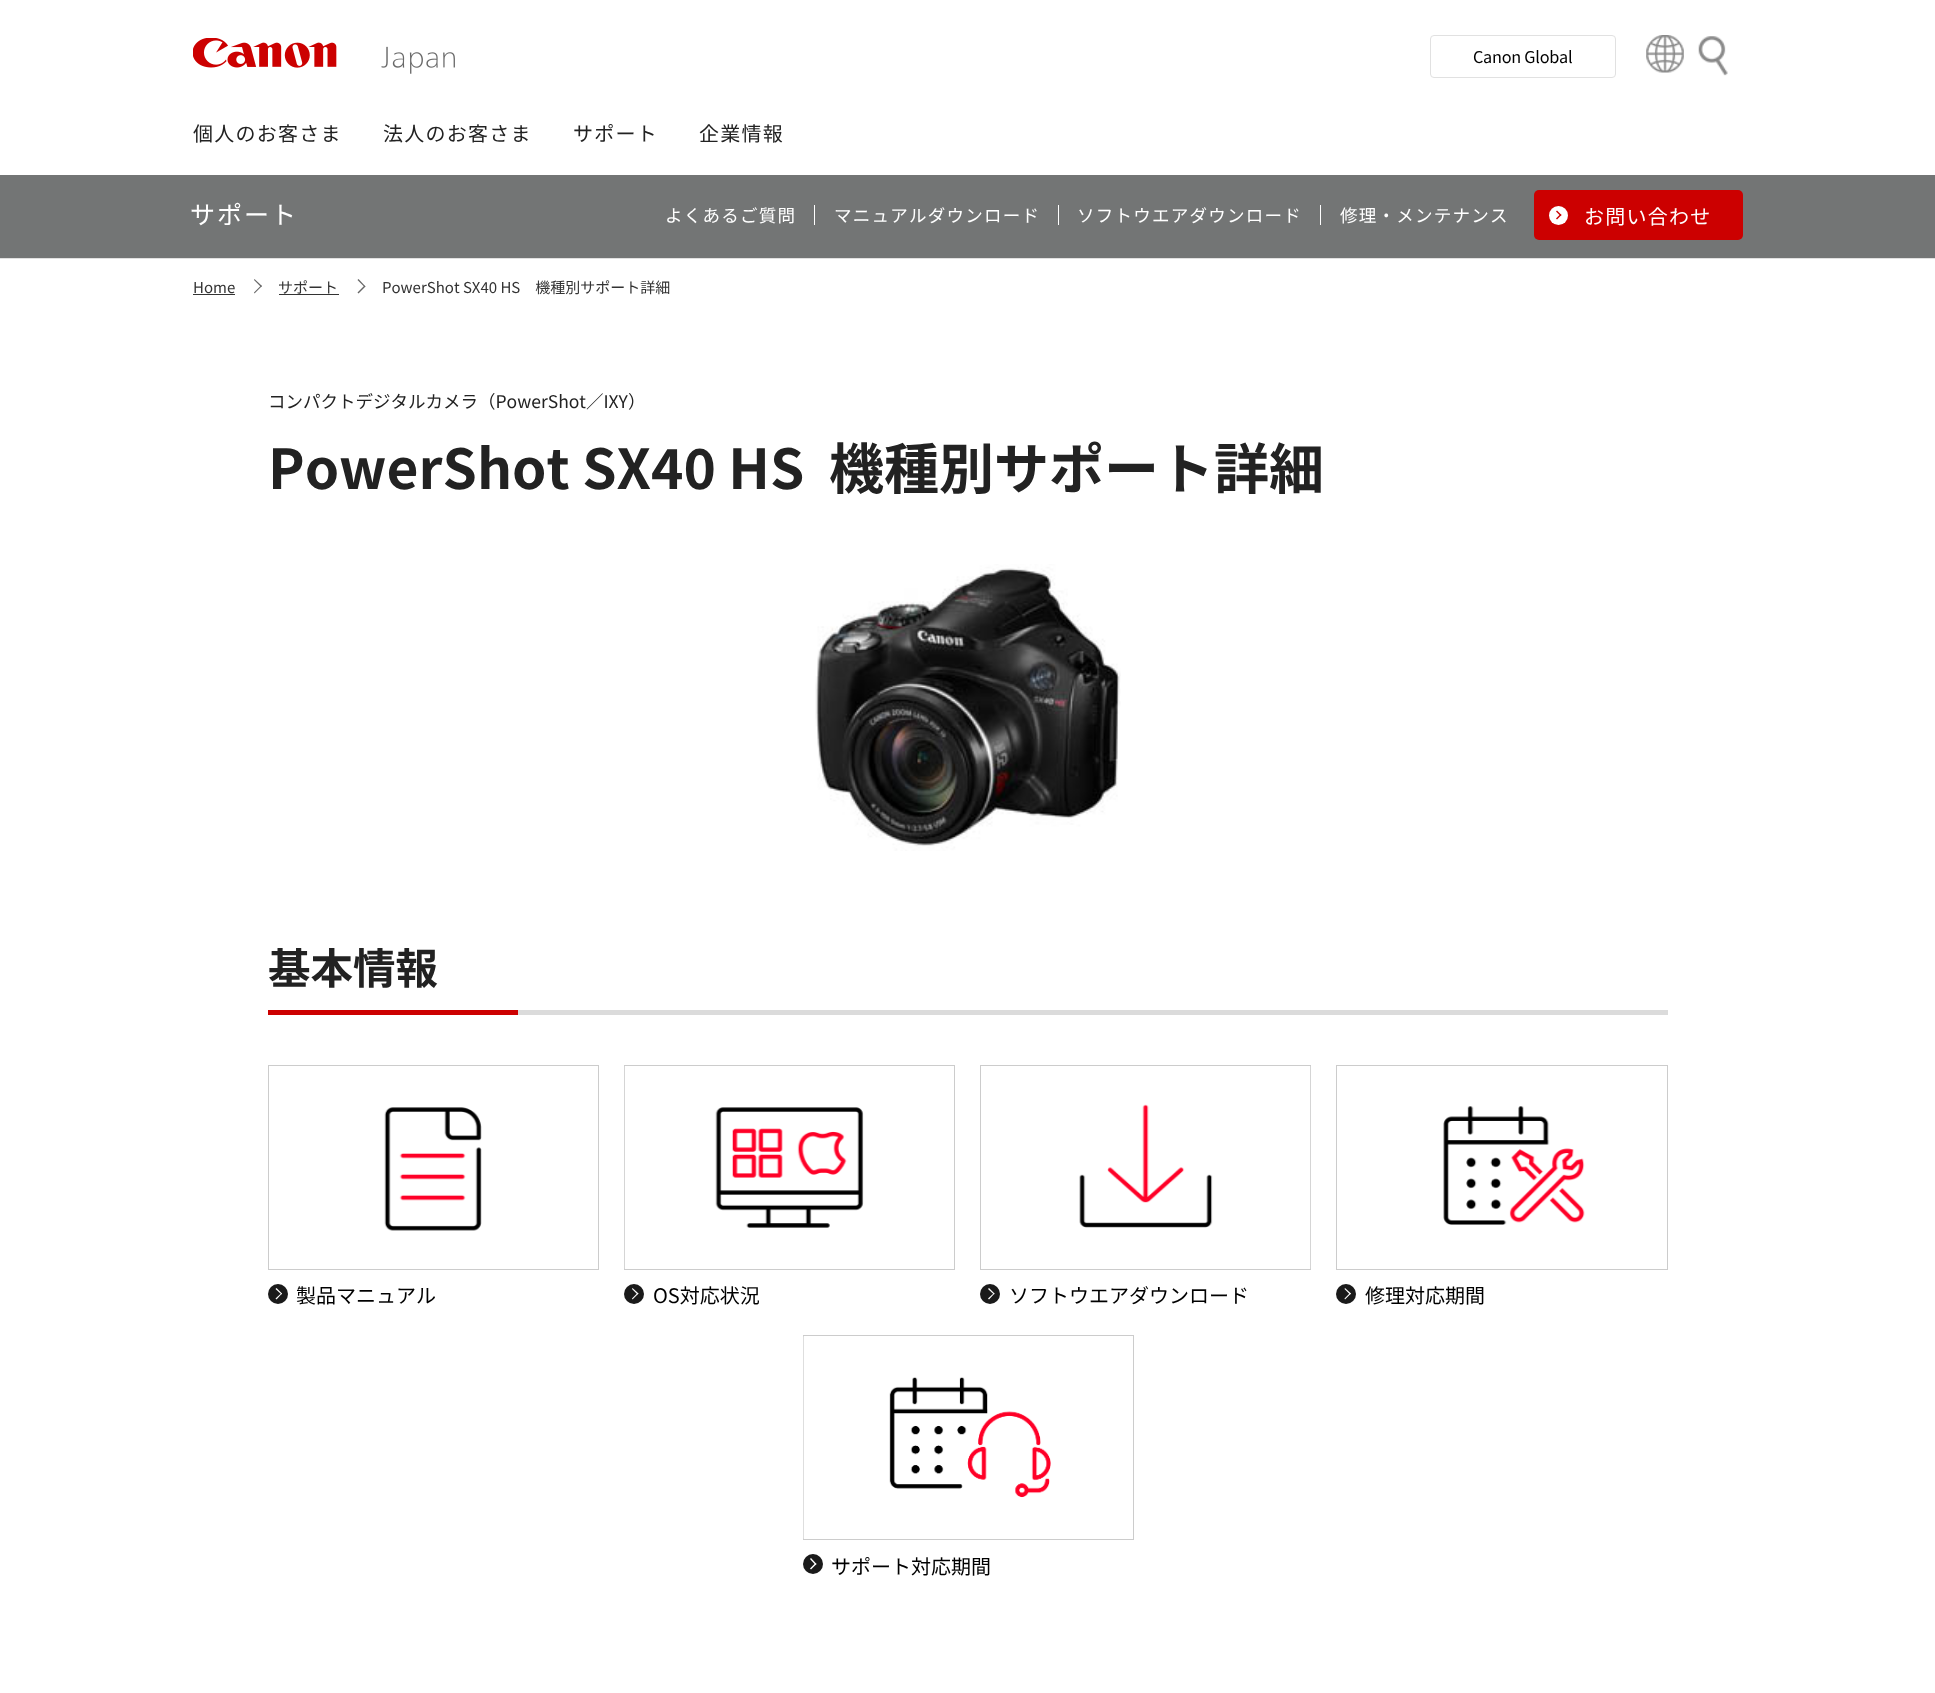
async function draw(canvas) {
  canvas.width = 1935
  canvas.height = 1693
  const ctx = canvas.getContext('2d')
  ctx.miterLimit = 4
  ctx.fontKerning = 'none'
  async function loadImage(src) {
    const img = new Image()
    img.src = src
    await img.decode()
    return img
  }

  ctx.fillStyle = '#fff'
  ctx.fillRect(0, 0, 1935, 1693)
  ctx.drawImage(await loadImage('image0.png'), 193, 38, 262, 36)
  ctx.drawImage(await loadImage('image1.png'), 1698, 36, 30, 40)
  ctx.beginPath()
  ctx.roundRect(1430.5, 35.5, 185, 42, 3.5)
  ctx.strokeStyle = '#e1e1e1'
  ctx.stroke()
  ctx.letterSpacing = '-0.25px'
  ctx.font = '16.25px Noto Sans JP'
  ctx.fillStyle = '#000'
  ctx.fillText('Canon Global', 1473, 63)
  ctx.drawImage(await loadImage('image2.png'), 1646, 35, 38, 38)
  ctx.letterSpacing = '1.25px'
  ctx.font = '20px Noto Sans JP'
  ctx.fillStyle = '#222'
  ctx.fillText('個人のお客さま', 193, 141)
  ctx.fillText('法人のお客さま', 383, 141)
  ctx.fillText('サポート', 573, 141)
  ctx.fillText('企業情報', 699, 141)
  ctx.fillStyle = '#737575'
  ctx.fillRect(0, 175, 1935, 83)
  ctx.letterSpacing = '2px'
  ctx.font = '25px Noto Sans JP'
  ctx.fillStyle = '#fff'
  ctx.fillText('サポート', 190, 224)
  ctx.letterSpacing = '1.25px'
  ctx.font = '17.5px Noto Sans JP'
  ctx.fillText('よくあるご質問', 665, 222)
  ctx.fillRect(814, 205, 1, 20)
  ctx.fillText('マニュアルダウンロード', 834, 222)
  ctx.fillRect(1058, 205, 1, 20)
  ctx.fillText('ソフトウエアダウンロード', 1077, 222)
  ctx.fillRect(1320, 205, 1, 20)
  ctx.fillText('修理・メンテナンス', 1340, 222)
  ctx.fillStyle = '#c00'
  ctx.beginPath()
  ctx.roundRect(1534, 190, 209, 50, 5)
  ctx.fill()
  ctx.fillStyle = '#fff'
  ctx.beginPath()
  ctx.arc(1558.5, 215.5, 9.5, 0, 2 * Math.PI)
  ctx.fill()
  ctx.font = '20px Noto Sans JP'
  ctx.fillText('お問い合わせ', 1584, 224)
  ctx.fillStyle = '#c00'
  ctx.beginPath()
  ctx.moveTo(1557, 210.5)
  ctx.lineTo(1561.5, 215)
  ctx.lineTo(1560.5, 216)
  ctx.lineTo(1556, 211.5)
  ctx.closePath()
  ctx.fill()
  ctx.beginPath()
  ctx.moveTo(1560.5, 214)
  ctx.lineTo(1561.5, 215)
  ctx.lineTo(1557, 219.5)
  ctx.lineTo(1556, 218.5)
  ctx.closePath()
  ctx.fill()
  ctx.fillStyle = '#e1e1e1'
  ctx.fillRect(0, 258, 1935, 1)
  ctx.letterSpacing = '0px'
  ctx.font = '15px Noto Sans JP'
  ctx.fillStyle = '#333'
  ctx.fillText('Home', 193, 293)
  ctx.fillRect(193, 294, 42, 1)
  ctx.fillStyle = '#666'
  ctx.beginPath()
  ctx.moveTo(254, 280)
  ctx.lineTo(254.5, 279)
  ctx.lineTo(262, 286)
  ctx.lineTo(261, 287)
  ctx.closePath()
  ctx.fill()
  ctx.beginPath()
  ctx.moveTo(254, 292.5)
  ctx.lineTo(261, 285.5)
  ctx.lineTo(262, 286)
  ctx.lineTo(254.5, 293.5)
  ctx.closePath()
  ctx.fill()
  ctx.fillStyle = '#333'
  ctx.fillText('サポート', 278, 293)
  ctx.fillRect(279, 294, 60, 1)
  ctx.fillStyle = '#666'
  ctx.beginPath()
  ctx.moveTo(357.5, 280)
  ctx.lineTo(358.5, 279)
  ctx.lineTo(365.5, 286.5)
  ctx.lineTo(364.5, 287)
  ctx.closePath()
  ctx.fill()
  ctx.beginPath()
  ctx.moveTo(357.5, 292.5)
  ctx.lineTo(364.5, 285.5)
  ctx.lineTo(365.5, 286.5)
  ctx.lineTo(358.5, 293.5)
  ctx.closePath()
  ctx.fill()
  ctx.fillStyle = '#333'
  ctx.fillText('PowerShot SX40 HS　機種別サポート詳細', 382, 293)
  ctx.font = '17.5px Noto Sans JP'
  ctx.fillStyle = '#222'
  ctx.fillText('コンパクトデジタルカメラ（PowerShot／IXY）', 268, 408)
  ctx.font = 'bold 55px Noto Sans JP'
  ctx.fillText('PowerShot SX40 HS', 268, 489)
  ctx.fillText('機種別サポート詳細', 829, 489)
  ctx.drawImage(await loadImage('image3.png'), 815, 564, 306, 287)
  ctx.font = 'bold 42.5px Noto Sans JP'
  ctx.fillText('基本情報', 268, 984)
  ctx.fillStyle = '#c00'
  ctx.fillRect(268, 1010, 250, 5)
  ctx.fillStyle = '#dbdbdb'
  ctx.fillRect(518, 1010, 1150, 5)
  ctx.strokeStyle = '#ccc'
  ctx.strokeRect(268.5, 1065.5, 330, 204)
  ctx.drawImage(await loadImage('image4.png'), 384, 1107, 98, 124)
  ctx.fillStyle = '#1a1a1a'
  ctx.beginPath()
  ctx.arc(278, 1294, 10, 0, 2 * Math.PI)
  ctx.fill()
  ctx.font = '20px Noto Sans JP'
  ctx.fillStyle = '#000'
  ctx.fillText('製品マニュアル', 296, 1303)
  ctx.fillStyle = '#fff'
  ctx.beginPath()
  ctx.moveTo(276.5, 1288)
  ctx.lineTo(282, 1293.5)
  ctx.lineTo(281.5, 1294.5)
  ctx.lineTo(275.5, 1289)
  ctx.closePath()
  ctx.fill()
  ctx.beginPath()
  ctx.moveTo(281.5, 1293)
  ctx.lineTo(282, 1293.5)
  ctx.lineTo(276.5, 1299.5)
  ctx.lineTo(275.5, 1298.5)
  ctx.closePath()
  ctx.fill()
  ctx.strokeRect(624.5, 1065.5, 330, 204)
  ctx.drawImage(await loadImage('image5.png'), 624, 1066, 240, 203)
  ctx.fillStyle = '#1a1a1a'
  ctx.beginPath()
  ctx.arc(634, 1294, 10, 0, 2 * Math.PI)
  ctx.fill()
  ctx.fillStyle = '#000'
  ctx.fillText('OS対応状況', 653, 1303)
  ctx.fillStyle = '#fff'
  ctx.beginPath()
  ctx.moveTo(632.5, 1288)
  ctx.lineTo(638.5, 1293.5)
  ctx.lineTo(637.5, 1294.5)
  ctx.lineTo(632, 1289)
  ctx.closePath()
  ctx.fill()
  ctx.beginPath()
  ctx.moveTo(637.5, 1293)
  ctx.lineTo(638.5, 1293.5)
  ctx.lineTo(632.5, 1299.5)
  ctx.lineTo(632, 1298.5)
  ctx.closePath()
  ctx.fill()
  ctx.strokeRect(980.5, 1065.5, 330, 204)
  ctx.drawImage(await loadImage('image6.png'), 1079, 1066, 232, 203)
  ctx.fillStyle = '#1a1a1a'
  ctx.beginPath()
  ctx.arc(990, 1294, 10, 0, 2 * Math.PI)
  ctx.fill()
  ctx.fillStyle = '#000'
  ctx.fillText('ソフトウエアダウンロード', 1009, 1303)
  ctx.fillStyle = '#fff'
  ctx.beginPath()
  ctx.moveTo(989, 1288)
  ctx.lineTo(994.5, 1293.5)
  ctx.lineTo(994, 1294.5)
  ctx.lineTo(988, 1289)
  ctx.closePath()
  ctx.fill()
  ctx.beginPath()
  ctx.moveTo(994, 1293)
  ctx.lineTo(994.5, 1293.5)
  ctx.lineTo(989, 1299.5)
  ctx.lineTo(988, 1298.5)
  ctx.closePath()
  ctx.fill()
  ctx.strokeRect(1336.5, 1065.5, 331, 204)
  ctx.drawImage(await loadImage('image7.png'), 1443, 1106, 142, 119)
  ctx.fillStyle = '#1a1a1a'
  ctx.beginPath()
  ctx.arc(1346, 1294, 10, 0, 2 * Math.PI)
  ctx.fill()
  ctx.fillStyle = '#000'
  ctx.fillText('修理対応期間', 1365, 1303)
  ctx.fillStyle = '#fff'
  ctx.beginPath()
  ctx.moveTo(1345, 1288)
  ctx.lineTo(1351, 1293.5)
  ctx.lineTo(1350, 1294.5)
  ctx.lineTo(1344.5, 1289)
  ctx.closePath()
  ctx.fill()
  ctx.beginPath()
  ctx.moveTo(1350, 1293)
  ctx.lineTo(1351, 1293.5)
  ctx.lineTo(1345, 1299.5)
  ctx.lineTo(1344.5, 1298.5)
  ctx.closePath()
  ctx.fill()
  ctx.strokeRect(803.5, 1335.5, 330, 204)
  ctx.drawImage(await loadImage('image8.png'), 803, 1336, 248, 203)
  ctx.fillStyle = '#1a1a1a'
  ctx.beginPath()
  ctx.arc(813, 1564, 10, 0, 2 * Math.PI)
  ctx.fill()
  ctx.fillStyle = '#000'
  ctx.fillText('サポート対応期間', 831, 1574)
  ctx.fillStyle = '#fff'
  ctx.beginPath()
  ctx.moveTo(811, 1558)
  ctx.lineTo(816.5, 1564)
  ctx.lineTo(815.5, 1565)
  ctx.lineTo(810, 1559)
  ctx.closePath()
  ctx.fill()
  ctx.beginPath()
  ctx.moveTo(815.5, 1563)
  ctx.lineTo(816.5, 1564)
  ctx.lineTo(811, 1569.5)
  ctx.lineTo(810, 1568.5)
  ctx.closePath()
  ctx.fill()
}

draw(document.querySelector('canvas'))
